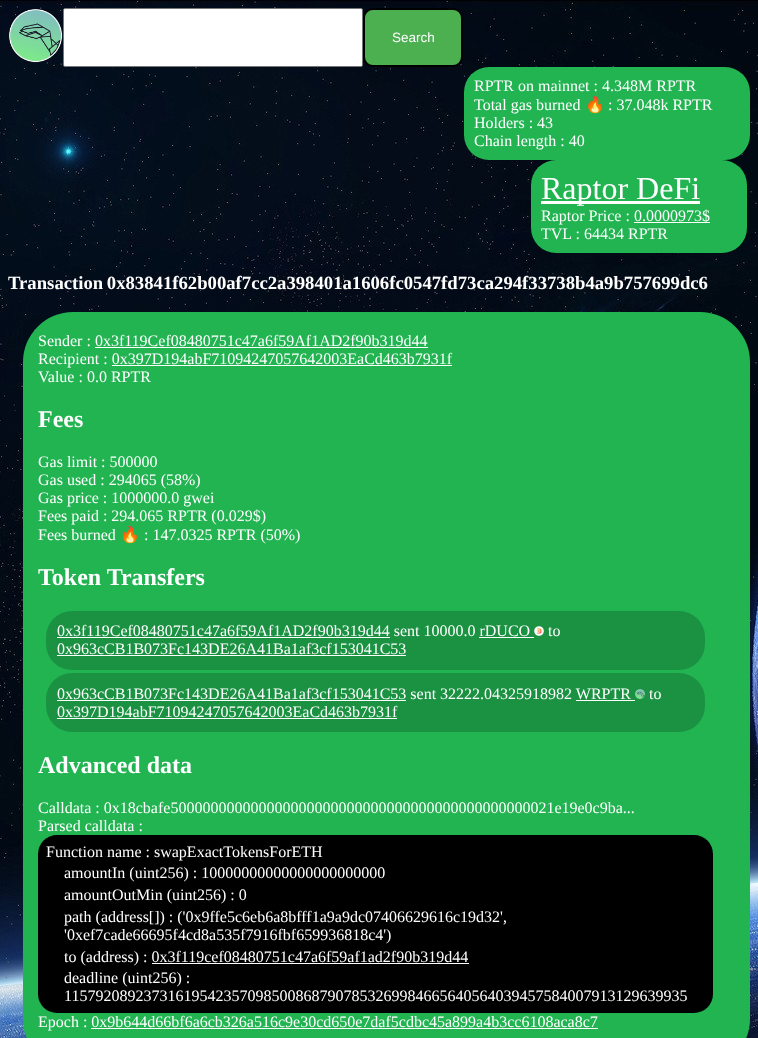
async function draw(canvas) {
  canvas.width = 758
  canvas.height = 1038
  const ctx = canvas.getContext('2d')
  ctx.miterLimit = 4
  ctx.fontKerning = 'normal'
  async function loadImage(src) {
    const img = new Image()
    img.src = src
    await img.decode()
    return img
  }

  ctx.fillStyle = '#fff'
  ctx.fillRect(0, 0, 758, 1038)
  ctx.drawImage(await loadImage('image0.png'), 0, 0, 758, 1038)
  ctx.drawImage(await loadImage('image1.png'), 9, 9, 54, 54)
  ctx.beginPath()
  ctx.roundRect(63.5, 8.5, 299, 58, 1.5)
  ctx.fill()
  ctx.strokeStyle = '#767676'
  ctx.stroke()
  ctx.fillStyle = '#4caf50'
  ctx.beginPath()
  ctx.roundRect(364, 9, 98, 57, 9)
  ctx.fill()
  ctx.strokeStyle = '#000'
  ctx.lineWidth = 2
  ctx.stroke()
  ctx.font = '13.5px Liberation Sans'
  ctx.fillStyle = '#fff'
  ctx.fillText('Search', 392, 42)
  ctx.fillStyle = '#21b451'
  ctx.beginPath()
  ctx.roundRect(464, 67, 286, 93, 25)
  ctx.fill()
  ctx.font = '16px Liberation Serif'
  ctx.fillStyle = '#fff'
  ctx.fillText('RPTR on mainnet : 4.348M RPTR', 474, 91)
  ctx.fillText('Total gas burned', 474, 110)
  ctx.font = '16px Noto Color Emoji'
  ctx.fillText('🔥', 585, 110)
  ctx.font = '16px Liberation Serif'
  ctx.fillText(': 37.048k RPTR', 608, 110)
  ctx.fillText('Holders : 43', 474, 128)
  ctx.fillText('Chain length : 40', 474, 146)
  ctx.fillStyle = '#21b451'
  ctx.beginPath()
  ctx.roundRect(531, 160, 216, 93, 25)
  ctx.fill()
  ctx.fillStyle = '#fff'
  ctx.fillRect(541, 201, 159, 3)
  ctx.font = '32px Liberation Serif'
  ctx.fillText('Raptor DeFi', 541, 199)
  ctx.font = '16px Liberation Serif'
  ctx.fillText('Raptor Price :', 541, 221)
  ctx.fillRect(634, 222, 76, 1)
  ctx.fillText('0.0000973$', 634, 221)
  ctx.fillText('TVL : 64434 RPTR', 541, 239)
  ctx.wordSpacing = '-1px'
  ctx.font = 'bold 18.7px Liberation Serif'
  ctx.fillText('Transaction 0x83841f62b00af7cc2a398401a1606fc0547fd73ca294f33738b4a9b757699dc6', 8, 289)
  ctx.fillStyle = '#21b451'
  ctx.beginPath()
  ctx.roundRect(23, 312, 727, 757, 50)
  ctx.fill()
  ctx.wordSpacing = '0px'
  ctx.font = '16px Liberation Serif'
  ctx.fillStyle = '#fff'
  ctx.fillText('Sender : 0x3f119Cef08480751c47a6f59Af1AD2f90b319d44', 38, 346)
  ctx.fillRect(95, 347, 333, 1)
  ctx.fillText('Recipient : 0x397D194abF71094247057642003EaCd463b7931f', 38, 364)
  ctx.fillRect(112, 365, 340, 1)
  ctx.fillText('Value : 0.0 RPTR', 38, 382)
  ctx.font = 'bold 24px Liberation Serif'
  ctx.fillText('Fees', 38, 427)
  ctx.font = '16px Liberation Serif'
  ctx.fillText('Gas limit : 500000', 38, 467)
  ctx.fillText('Gas used : 294065 (58%)', 38, 485)
  ctx.fillText('Gas price : 1000000.0 gwei', 38, 503)
  ctx.fillText('Fees paid : 294.065 RPTR (0.029$)', 38, 521)
  ctx.fillText('Fees burned', 38, 540)
  ctx.font = '16px Noto Color Emoji'
  ctx.fillText('🔥', 120, 540)
  ctx.font = '16px Liberation Serif'
  ctx.fillText(': 147.0325 RPTR (50%)', 144, 540)
  ctx.font = 'bold 24px Liberation Serif'
  ctx.fillText('Token Transfers', 38, 585)
  ctx.fillStyle = '#1b9242'
  ctx.beginPath()
  ctx.roundRect(46, 611, 659, 59, 26)
  ctx.fill()
  ctx.font = '16px Liberation Serif'
  ctx.fillStyle = '#fff'
  ctx.fillText('0x3f119Cef08480751c47a6f59Af1AD2f90b319d44 sent 10000.0 rDUCO', 57, 636)
  ctx.fillRect(57, 637, 333, 1)
  ctx.drawImage(await loadImage('image2.png'), 534, 626, 10, 10)
  ctx.fillText('to', 548, 636)
  ctx.fillRect(479, 637, 55, 1)
  ctx.fillText('0x963cCB1B073Fc143DE26A41Ba1af3cf153041C53', 57, 654)
  ctx.fillRect(57, 655, 349, 1)
  ctx.fillStyle = '#1b9242'
  ctx.beginPath()
  ctx.roundRect(46, 673, 659, 59, 26)
  ctx.fill()
  ctx.fillStyle = '#fff'
  ctx.fillText('0x963cCB1B073Fc143DE26A41Ba1af3cf153041C53 sent 32222.04325918982 WRPTR', 57, 699)
  ctx.fillRect(57, 700, 349, 1)
  ctx.drawImage(await loadImage('image3.png'), 635, 689, 10, 10)
  ctx.fillText('to', 649, 699)
  ctx.fillRect(576, 700, 59, 1)
  ctx.fillText('0x397D194abF71094247057642003EaCd463b7931f', 57, 717)
  ctx.fillRect(57, 718, 340, 1)
  ctx.font = 'bold 24px Liberation Serif'
  ctx.fillText('Advanced data', 38, 773)
  ctx.font = '16px Liberation Serif'
  ctx.fillText('Calldata : 0x18cbafe500000000000000000000000000000000000000000000021e19e0c9ba...', 38, 813)
  ctx.fillText('Parsed calldata :', 38, 831)
  ctx.fillStyle = '#000'
  ctx.beginPath()
  ctx.roundRect(38, 835, 675, 178, 19)
  ctx.fill()
  ctx.fillStyle = '#fff'
  ctx.fillText('Function name : swapExactTokensForETH', 46, 857)
  ctx.fillText('amountIn (uint256) : 10000000000000000000000', 64, 878)
  ctx.fillText('amountOutMin (uint256) : 0', 64, 900)
  ctx.fillText('path (address[]) : (\'0x9ffe5c6eb6a8bfff1a9a9dc07406629616c19d32\',', 64, 922)
  ctx.fillText('\'0xef7cade66695f4cd8a535f7916fbf659936818c4\')', 64, 940)
  ctx.fillText('to (address) : 0x3f119cef08480751c47a6f59af1ad2f90b319d44', 64, 962)
  ctx.fillRect(152, 963, 317, 1)
  ctx.fillText('deadline (uint256) :', 64, 983)
  ctx.fillText('115792089237316195423570985008687907853269984665640564039457584007913129639935', 64, 1001)
  ctx.fillText('Epoch : 0x9b644d66bf6a6cb326a516c9e30cd650e7daf5cdbc45a899a4b3cc6108aca8c7', 38, 1027)
  ctx.fillRect(91, 1028, 507, 1)
}

draw(document.querySelector('canvas'))
